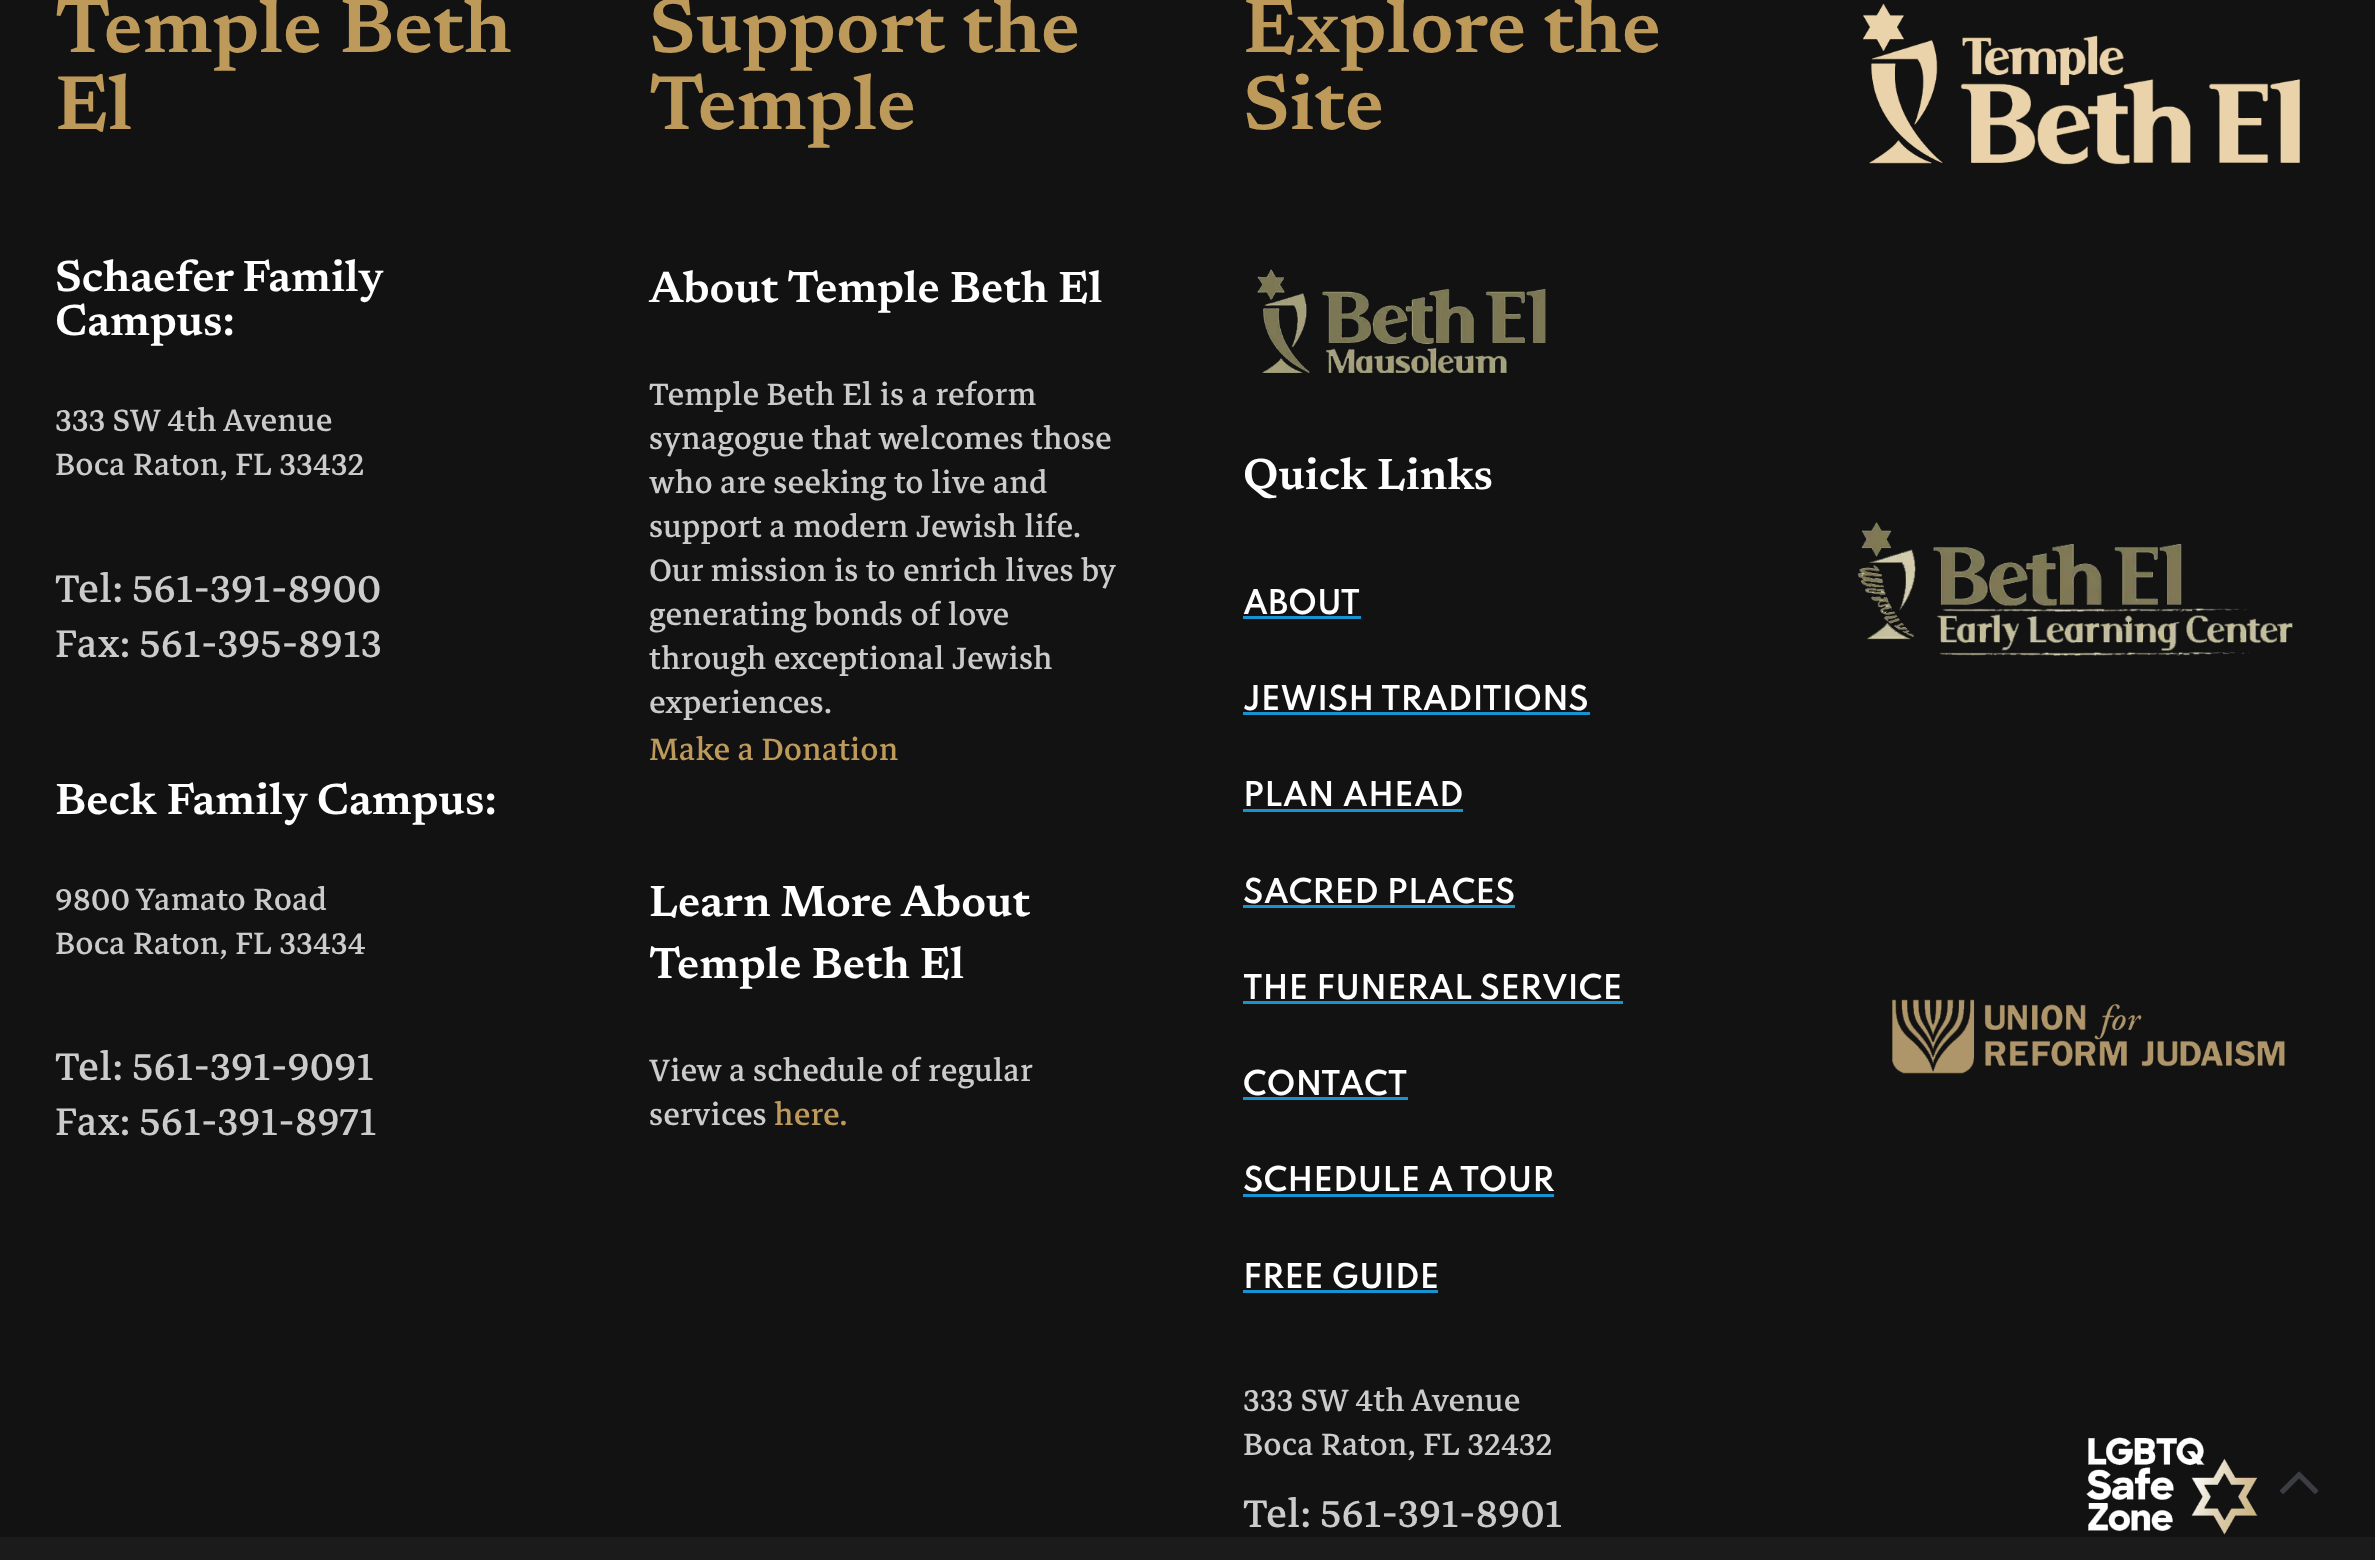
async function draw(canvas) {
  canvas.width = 2375
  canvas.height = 1560
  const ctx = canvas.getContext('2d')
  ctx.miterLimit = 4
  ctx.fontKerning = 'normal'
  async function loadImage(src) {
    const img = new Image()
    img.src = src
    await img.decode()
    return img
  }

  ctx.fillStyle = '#121212'
  ctx.fillRect(0, 0, 2375, 1560)
  ctx.font = '600 77px Newsreader'
  ctx.fillStyle = '#be9a5a'
  ctx.fillText('Temple Beth', 55, 52)
  ctx.fillText('El', 55, 129)
  ctx.wordSpacing = '-1px'
  ctx.font = '600 44px Newsreader'
  ctx.fillStyle = '#fff'
  ctx.fillText('Schaefer Family', 55, 291)
  ctx.wordSpacing = '0px'
  ctx.fillText('Campus:', 55, 335)
  ctx.font = '44px Markazi Text'
  ctx.fillStyle = '#cbcbcb'
  ctx.fillText('333 SW 4th Avenue', 55, 431)
  ctx.fillText('Boca Raton, FL 33432', 55, 475)
  ctx.font = '55px Markazi Text'
  ctx.fillText('Tel: 561-391-8900', 55, 602)
  ctx.fillText('Fax: 561-395-8913', 55, 657)
  ctx.font = '600 44px Newsreader'
  ctx.fillStyle = '#fff'
  ctx.fillText('Beck Family Campus:', 55, 814)
  ctx.font = '44px Markazi Text'
  ctx.fillStyle = '#cbcbcb'
  ctx.fillText('9800 Yamato Road', 55, 910)
  ctx.fillText('Boca Raton, FL 33434', 55, 954)
  ctx.font = '55px Markazi Text'
  ctx.fillText('Tel: 561-391-9091', 55, 1080)
  ctx.fillText('Fax: 561-391-8971', 55, 1135)
  ctx.font = '600 77px Newsreader'
  ctx.fillStyle = '#be9a5a'
  ctx.fillText('Support the', 649, 52)
  ctx.fillText('Temple', 649, 129)
  ctx.font = '600 44px Newsreader'
  ctx.fillStyle = '#fff'
  ctx.fillText('About Temple Beth El', 649, 302)
  ctx.font = '44px Markazi Text'
  ctx.fillStyle = '#cbcbcb'
  ctx.fillText('Temple Beth El is a reform', 649, 405)
  ctx.fillText('synagogue that welcomes those', 649, 449)
  ctx.fillText('who are seeking to live and', 649, 493)
  ctx.fillText('support a modern Jewish life.', 649, 537)
  ctx.fillText('Our mission is to enrich lives by', 649, 581)
  ctx.fillText('generating bonds of love', 649, 625)
  ctx.fillText('through exceptional Jewish', 649, 669)
  ctx.fillText('experiences.', 649, 713)
  ctx.fillStyle = '#be9a5a'
  ctx.fillText('Make a Donation', 649, 760)
  ctx.font = '600 44px Newsreader'
  ctx.fillStyle = '#fff'
  ctx.fillText('Learn More About', 649, 916)
  ctx.fillText('Temple Beth El', 649, 978)
  ctx.font = '44px Markazi Text'
  ctx.fillStyle = '#cbcbcb'
  ctx.fillText('View a schedule of regular', 649, 1081)
  ctx.fillText('services', 649, 1125)
  ctx.fillStyle = '#be9a5a'
  ctx.fillText('here.', 774, 1125)
  ctx.font = '600 77px Newsreader'
  ctx.fillText('Explore the', 1243, 52)
  ctx.fillText('Site', 1243, 129)
  ctx.drawImage(await loadImage('image0.png'), 1257, 269, 289, 104)
  ctx.font = '600 44px Newsreader'
  ctx.fillStyle = '#fff'
  ctx.fillText('Quick Links', 1243, 489)
  ctx.font = '600 30.25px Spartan'
  ctx.fillText('ABOUT', 1243, 614)
  ctx.fillStyle = '#1893d2'
  ctx.fillRect(1243, 616, 118, 3)
  ctx.fillStyle = '#fff'
  ctx.fillText('JEWISH TRADITIONS', 1243, 710)
  ctx.fillStyle = '#1893d2'
  ctx.fillRect(1243, 712, 347, 3)
  ctx.fillStyle = '#fff'
  ctx.fillText('PLAN AHEAD', 1243, 806)
  ctx.fillStyle = '#1893d2'
  ctx.fillRect(1243, 809, 220, 3)
  ctx.fillStyle = '#fff'
  ctx.fillText('SACRED PLACES', 1243, 903)
  ctx.fillStyle = '#1893d2'
  ctx.fillRect(1243, 905, 272, 3)
  ctx.fillStyle = '#fff'
  ctx.fillText('THE FUNERAL SERVICE', 1243, 999)
  ctx.fillStyle = '#1893d2'
  ctx.fillRect(1243, 1001, 380, 3)
  ctx.fillStyle = '#fff'
  ctx.fillText('CONTACT', 1243, 1095)
  ctx.fillStyle = '#1893d2'
  ctx.fillRect(1243, 1097, 165, 3)
  ctx.fillStyle = '#fff'
  ctx.fillText('SCHEDULE A TOUR', 1243, 1191)
  ctx.fillStyle = '#1893d2'
  ctx.fillRect(1243, 1194, 311, 3)
  ctx.fillStyle = '#fff'
  ctx.fillText('FREE GUIDE', 1243, 1288)
  ctx.fillStyle = '#1893d2'
  ctx.fillRect(1243, 1290, 195, 3)
  ctx.font = '44px Markazi Text'
  ctx.fillStyle = '#cbcbcb'
  ctx.fillText('333 SW 4th Avenue', 1243, 1411)
  ctx.fillText('Boca Raton, FL 32432', 1243, 1455)
  ctx.font = '55px Markazi Text'
  ctx.fillText('Tel: 561-391-8901', 1243, 1527)
  ctx.drawImage(await loadImage('image1.png'), 1863, 3, 437, 162)
  ctx.drawImage(await loadImage('image2.png'), 1857, 522, 436, 134)
  ctx.drawImage(await loadImage('image3.png'), 1892, 999, 393, 75)
  ctx.drawImage(await loadImage('image4.png'), 2086, 1437, 172, 98)
  ctx.fillStyle = '#1b1b1b'
  ctx.fillRect(0, 1537, 2375, 23)
  ctx.drawImage(await loadImage('image5.png'), 2280, 1471, 39, 23)
}

draw(document.querySelector('canvas'))
